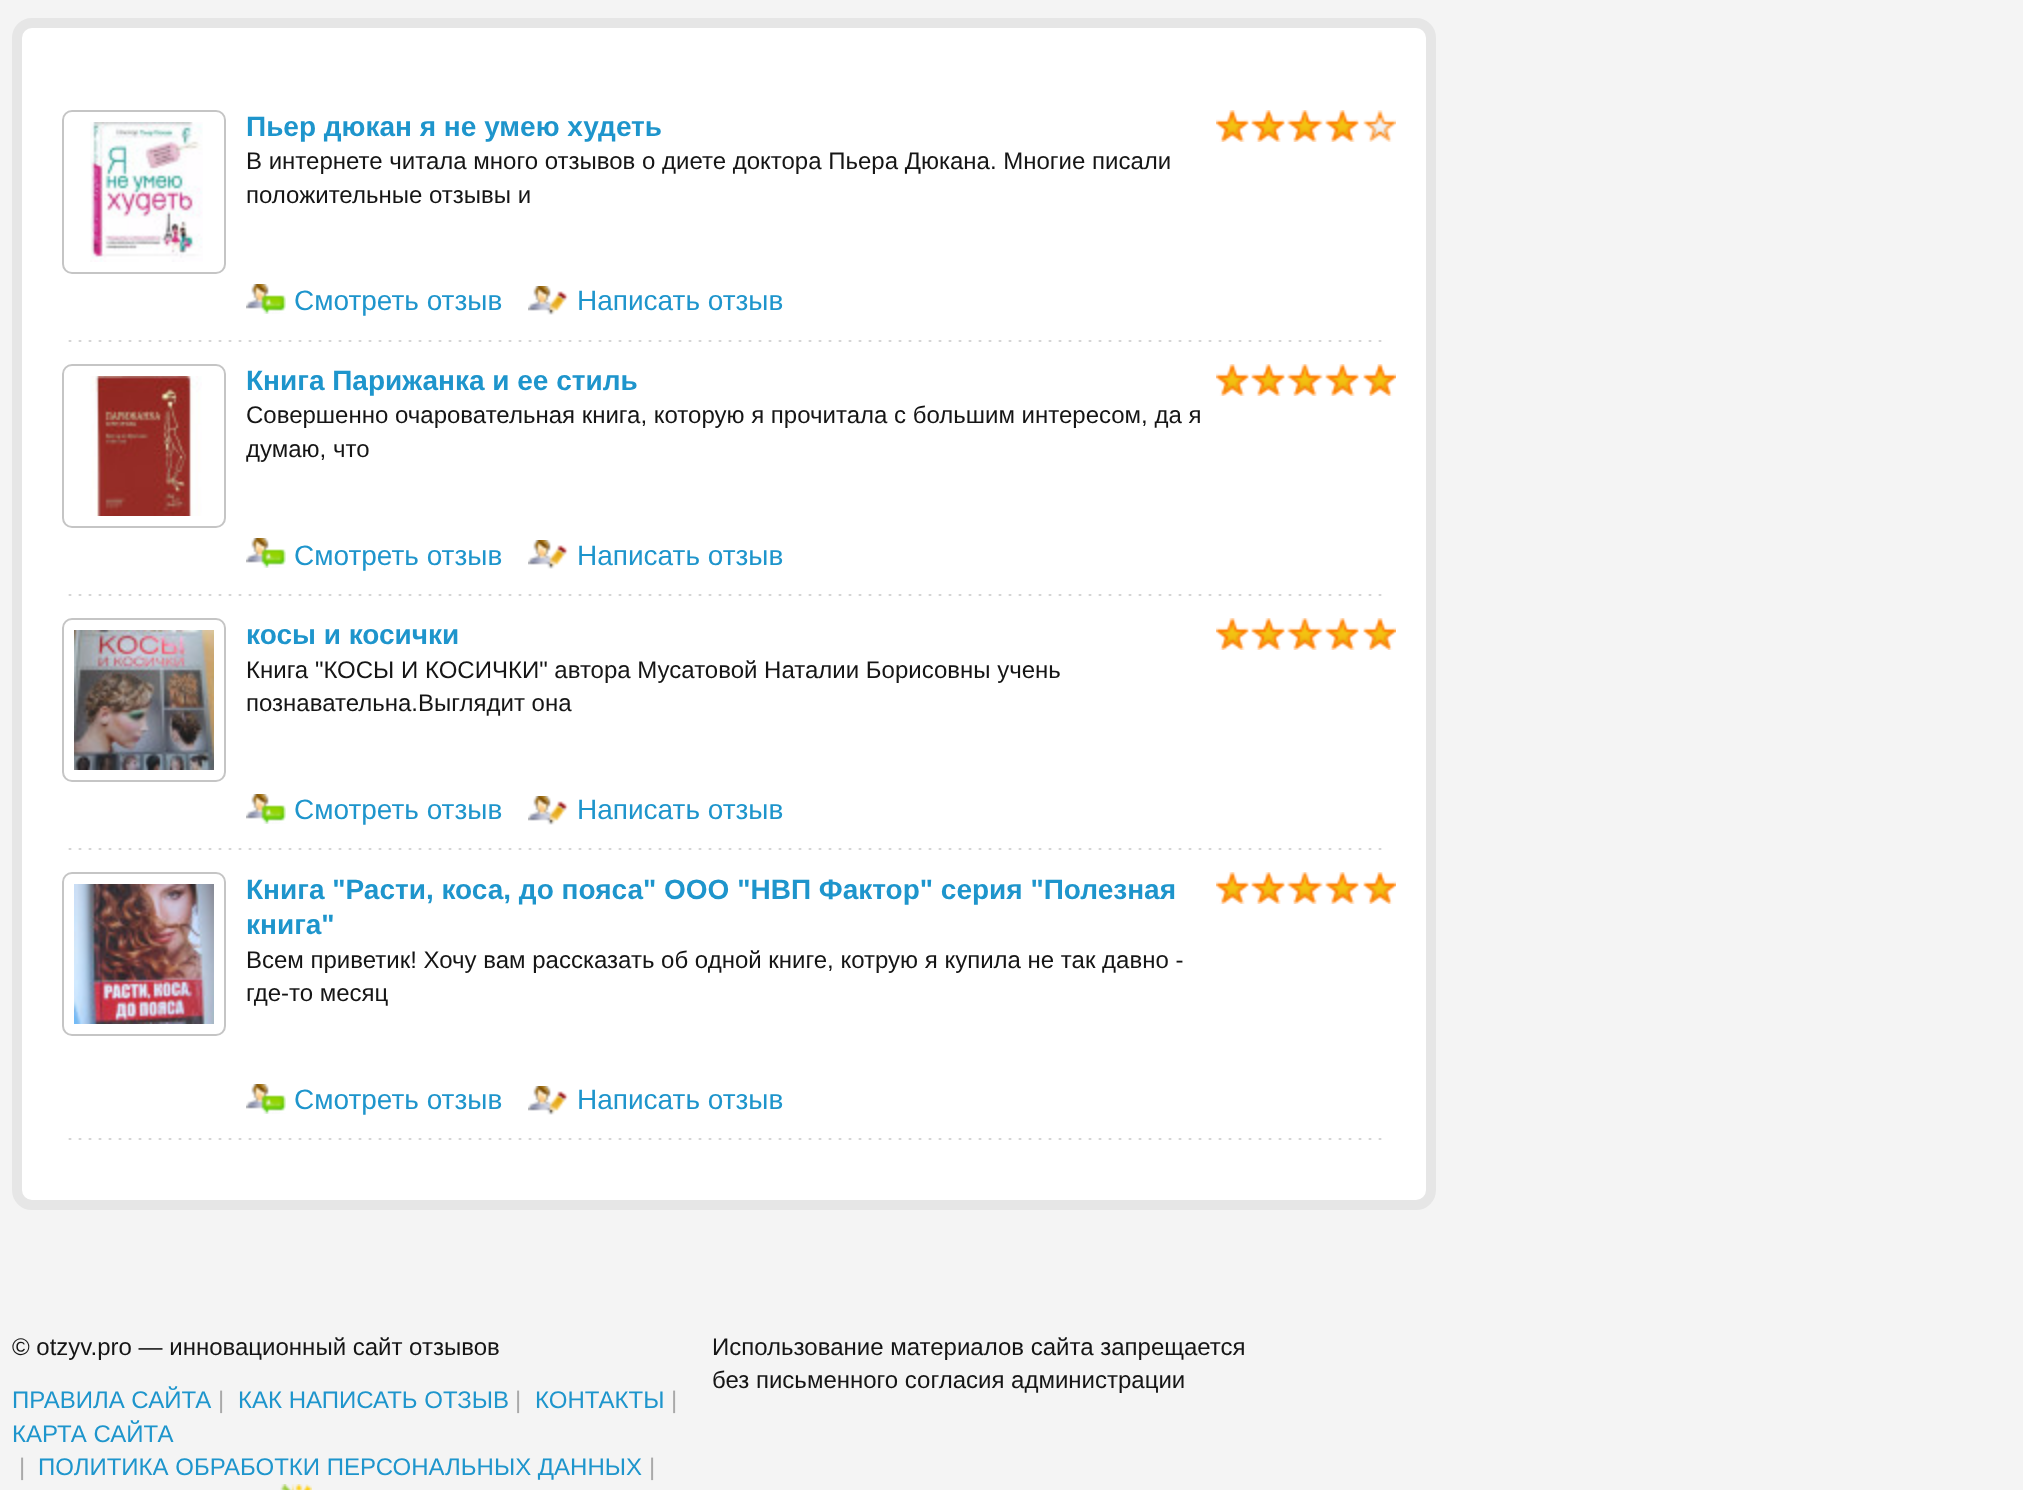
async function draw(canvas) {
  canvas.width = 2023
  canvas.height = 1490
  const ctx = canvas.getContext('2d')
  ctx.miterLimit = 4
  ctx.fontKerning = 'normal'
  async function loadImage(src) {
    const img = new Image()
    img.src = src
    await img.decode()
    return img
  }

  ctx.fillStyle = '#f4f4f4'
  ctx.fillRect(0, 0, 2023, 1490)
  ctx.fillStyle = '#fff'
  ctx.beginPath()
  ctx.roundRect(17, 23, 1414, 1182, 15)
  ctx.fill()
  ctx.strokeStyle = '#e6e6e6'
  ctx.lineWidth = 10
  ctx.stroke()
  ctx.drawImage(await loadImage('image0.png'), 68, 340, 1314, 2)
  ctx.beginPath()
  ctx.roundRect(63, 111, 162, 162, 9)
  ctx.strokeStyle = '#c5c5c5'
  ctx.lineWidth = 2
  ctx.stroke()
  ctx.drawImage(await loadImage('image1.png'), 90, 122, 113, 140)
  ctx.font = 'bold 28px Liberation Sans'
  ctx.fillStyle = '#1e95cc'
  ctx.fillText('Пьер дюкан я не умею худеть', 246, 136)
  ctx.font = '24px Liberation Sans'
  ctx.fillStyle = '#151515'
  ctx.fillText('В интернете читала много отзывов о диете доктора Пьера Дюкана. Многие писали', 246, 169)
  ctx.fillText('положительные отзывы и', 246, 203)
  ctx.drawImage(await loadImage('image2.png'), 246, 284, 40, 30)
  ctx.font = '28px Liberation Sans'
  ctx.fillStyle = '#1e95cc'
  ctx.fillText('Смотреть отзыв', 294, 310)
  ctx.drawImage(await loadImage('image3.png'), 528, 286, 40, 29)
  ctx.fillText('Написать отзыв', 577, 310)
  ctx.drawImage(await loadImage('image4.png'), 1216, 110, 180, 32)
  ctx.drawImage(await loadImage('image5.png'), 1216, 110, 143, 32)
  ctx.drawImage(await loadImage('image0.png'), 68, 594, 1314, 2)
  ctx.beginPath()
  ctx.roundRect(63, 365, 162, 162, 9)
  ctx.stroke()
  ctx.drawImage(await loadImage('image6.png'), 90, 376, 112, 140)
  ctx.font = 'bold 28px Liberation Sans'
  ctx.fillText('Книга Парижанка и ее стиль', 246, 390)
  ctx.font = '24px Liberation Sans'
  ctx.fillStyle = '#151515'
  ctx.fillText('Совершенно очаровательная книга, которую я прочитала с большим интересом, да я', 246, 423)
  ctx.fillText('думаю, что', 246, 457)
  ctx.drawImage(await loadImage('image2.png'), 246, 538, 40, 30)
  ctx.font = '28px Liberation Sans'
  ctx.fillStyle = '#1e95cc'
  ctx.fillText('Смотреть отзыв', 294, 565)
  ctx.drawImage(await loadImage('image3.png'), 528, 540, 40, 29)
  ctx.fillText('Написать отзыв', 577, 565)
  ctx.drawImage(await loadImage('image4.png'), 1216, 364, 180, 32)
  ctx.drawImage(await loadImage('image7.png'), 1216, 364, 180, 32)
  ctx.drawImage(await loadImage('image0.png'), 68, 848, 1314, 2)
  ctx.beginPath()
  ctx.roundRect(63, 619, 162, 162, 9)
  ctx.stroke()
  ctx.drawImage(await loadImage('image8.png'), 74, 630, 140, 140)
  ctx.font = 'bold 28px Liberation Sans'
  ctx.fillText('косы и косички', 246, 644)
  ctx.font = '24px Liberation Sans'
  ctx.fillStyle = '#151515'
  ctx.fillText('Книга "КОСЫ И КОСИЧКИ" автора Мусатовой Наталии Борисовны учень', 246, 678)
  ctx.fillText('познавательна.Выглядит она', 246, 711)
  ctx.drawImage(await loadImage('image2.png'), 246, 794, 40, 30)
  ctx.font = '28px Liberation Sans'
  ctx.fillStyle = '#1e95cc'
  ctx.fillText('Смотреть отзыв', 294, 819)
  ctx.drawImage(await loadImage('image3.png'), 528, 796, 40, 29)
  ctx.fillText('Написать отзыв', 577, 819)
  ctx.drawImage(await loadImage('image4.png'), 1216, 618, 180, 32)
  ctx.drawImage(await loadImage('image7.png'), 1216, 618, 180, 32)
  ctx.drawImage(await loadImage('image0.png'), 68, 1138, 1314, 2)
  ctx.beginPath()
  ctx.roundRect(63, 873, 162, 162, 9)
  ctx.stroke()
  ctx.drawImage(await loadImage('image9.png'), 74, 884, 140, 140)
  ctx.font = 'bold 28px Liberation Sans'
  ctx.fillText('Книга "Расти, коса, до пояса" ООО "НВП Фактор" серия "Полезная', 246, 899)
  ctx.fillText('книга"', 246, 934)
  ctx.font = '24px Liberation Sans'
  ctx.fillStyle = '#151515'
  ctx.fillText('Всем приветик! Хочу вам рассказать об одной книге, котрую я купила не так давно -', 246, 968)
  ctx.fillText('где-то месяц', 246, 1001)
  ctx.drawImage(await loadImage('image2.png'), 246, 1084, 40, 30)
  ctx.font = '28px Liberation Sans'
  ctx.fillStyle = '#1e95cc'
  ctx.fillText('Смотреть отзыв', 294, 1109)
  ctx.drawImage(await loadImage('image3.png'), 528, 1086, 40, 29)
  ctx.fillText('Написать отзыв', 577, 1109)
  ctx.drawImage(await loadImage('image4.png'), 1216, 872, 180, 32)
  ctx.drawImage(await loadImage('image7.png'), 1216, 872, 180, 32)
  ctx.font = '24px Liberation Sans'
  ctx.fillStyle = '#151515'
  ctx.fillText('© otzyv.pro — инновационный сайт отзывов', 12, 1355)
  ctx.fillStyle = '#1e95cc'
  ctx.fillText('ПРАВИЛА САЙТА', 12, 1408)
  ctx.fillStyle = '#a9a9a9'
  ctx.fillText('|', 218, 1408)
  ctx.fillStyle = '#1e95cc'
  ctx.fillText('КАК НАПИСАТЬ ОТЗЫВ', 238, 1408)
  ctx.fillStyle = '#a9a9a9'
  ctx.fillText('|', 515, 1408)
  ctx.fillStyle = '#1e95cc'
  ctx.fillText('КОНТАКТЫ', 535, 1408)
  ctx.fillStyle = '#a9a9a9'
  ctx.fillText('|', 671, 1408)
  ctx.fillStyle = '#1e95cc'
  ctx.fillText('КАРТА САЙТА', 12, 1442)
  ctx.fillStyle = '#a9a9a9'
  ctx.fillText('|', 19, 1475)
  ctx.fillStyle = '#1e95cc'
  ctx.fillText('ПОЛИТИКА ОБРАБОТКИ ПЕРСОНАЛЬНЫХ ДАННЫХ', 38, 1475)
  ctx.fillStyle = '#a9a9a9'
  ctx.fillText('|', 649, 1475)
  ctx.drawImage(await loadImage('image10.png'), 280, 1484, 32, 6)
  ctx.fillStyle = '#151515'
  ctx.fillText('Использование материалов сайта запрещается', 712, 1355)
  ctx.fillText('без письменного согласия администрации', 712, 1388)
}

draw(document.querySelector('canvas'))
